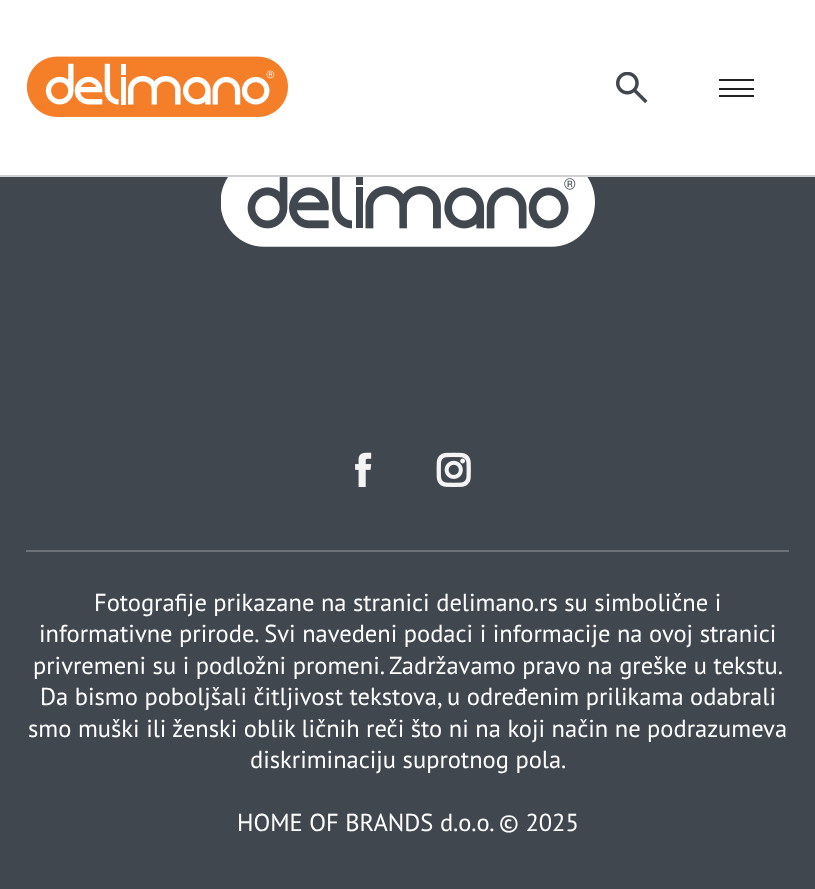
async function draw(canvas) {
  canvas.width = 815
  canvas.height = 889
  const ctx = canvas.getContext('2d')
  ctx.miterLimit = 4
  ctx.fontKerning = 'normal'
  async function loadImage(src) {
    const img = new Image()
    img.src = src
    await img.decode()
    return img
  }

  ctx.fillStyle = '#40474f'
  ctx.fillRect(0, 0, 815, 889)
  ctx.fillStyle = '#fff'
  ctx.fillRect(0, 0, 815, 175)
  ctx.fillStyle = '#cfd1d3'
  ctx.fillRect(0, 175, 815, 2)
  ctx.drawImage(await loadImage('image0.png'), 26, 56, 262, 61)
  ctx.drawImage(await loadImage('image1.png'), 616, 72, 32, 31)
  ctx.fillStyle = '#222'
  ctx.fillRect(719, 79, 35, 2)
  ctx.fillRect(719, 88, 35, 2)
  ctx.fillRect(719, 95, 35, 2)
  ctx.drawImage(await loadImage('image2.png'), 221, 177, 374, 70)
  ctx.drawImage(await loadImage('image3.png'), 355, 452, 17, 35)
  ctx.drawImage(await loadImage('image4.png'), 436, 452, 35, 35)
  ctx.fillStyle = '#6d7278'
  ctx.fillRect(26, 550, 763, 2)
  ctx.font = '24.5px PT Sans'
  ctx.fillStyle = '#fff'
  ctx.fillText('Fotografije prikazane na stranici delimano.rs su simbolične i', 94, 611)
  ctx.fillText('informativne prirode. Svi navedeni podaci i informacije na ovoj stranici', 39, 642)
  ctx.fillText('privremeni su i podložni promeni. Zadržavamo pravo na greške u tekstu.', 33, 674)
  ctx.fillText('Da bismo poboljšali čitljivost tekstova, u određenim prilikama odabrali', 40, 705)
  ctx.fillText('smo muški ili ženski oblik ličnih reči što ni na koji način ne podrazumeva', 28, 737)
  ctx.fillText('diskriminaciju suprotnog pola.', 250, 768)
  ctx.fillText('HOME OF BRANDS d.o.o. © 2025', 237, 831)
}

draw(document.querySelector('canvas'))
